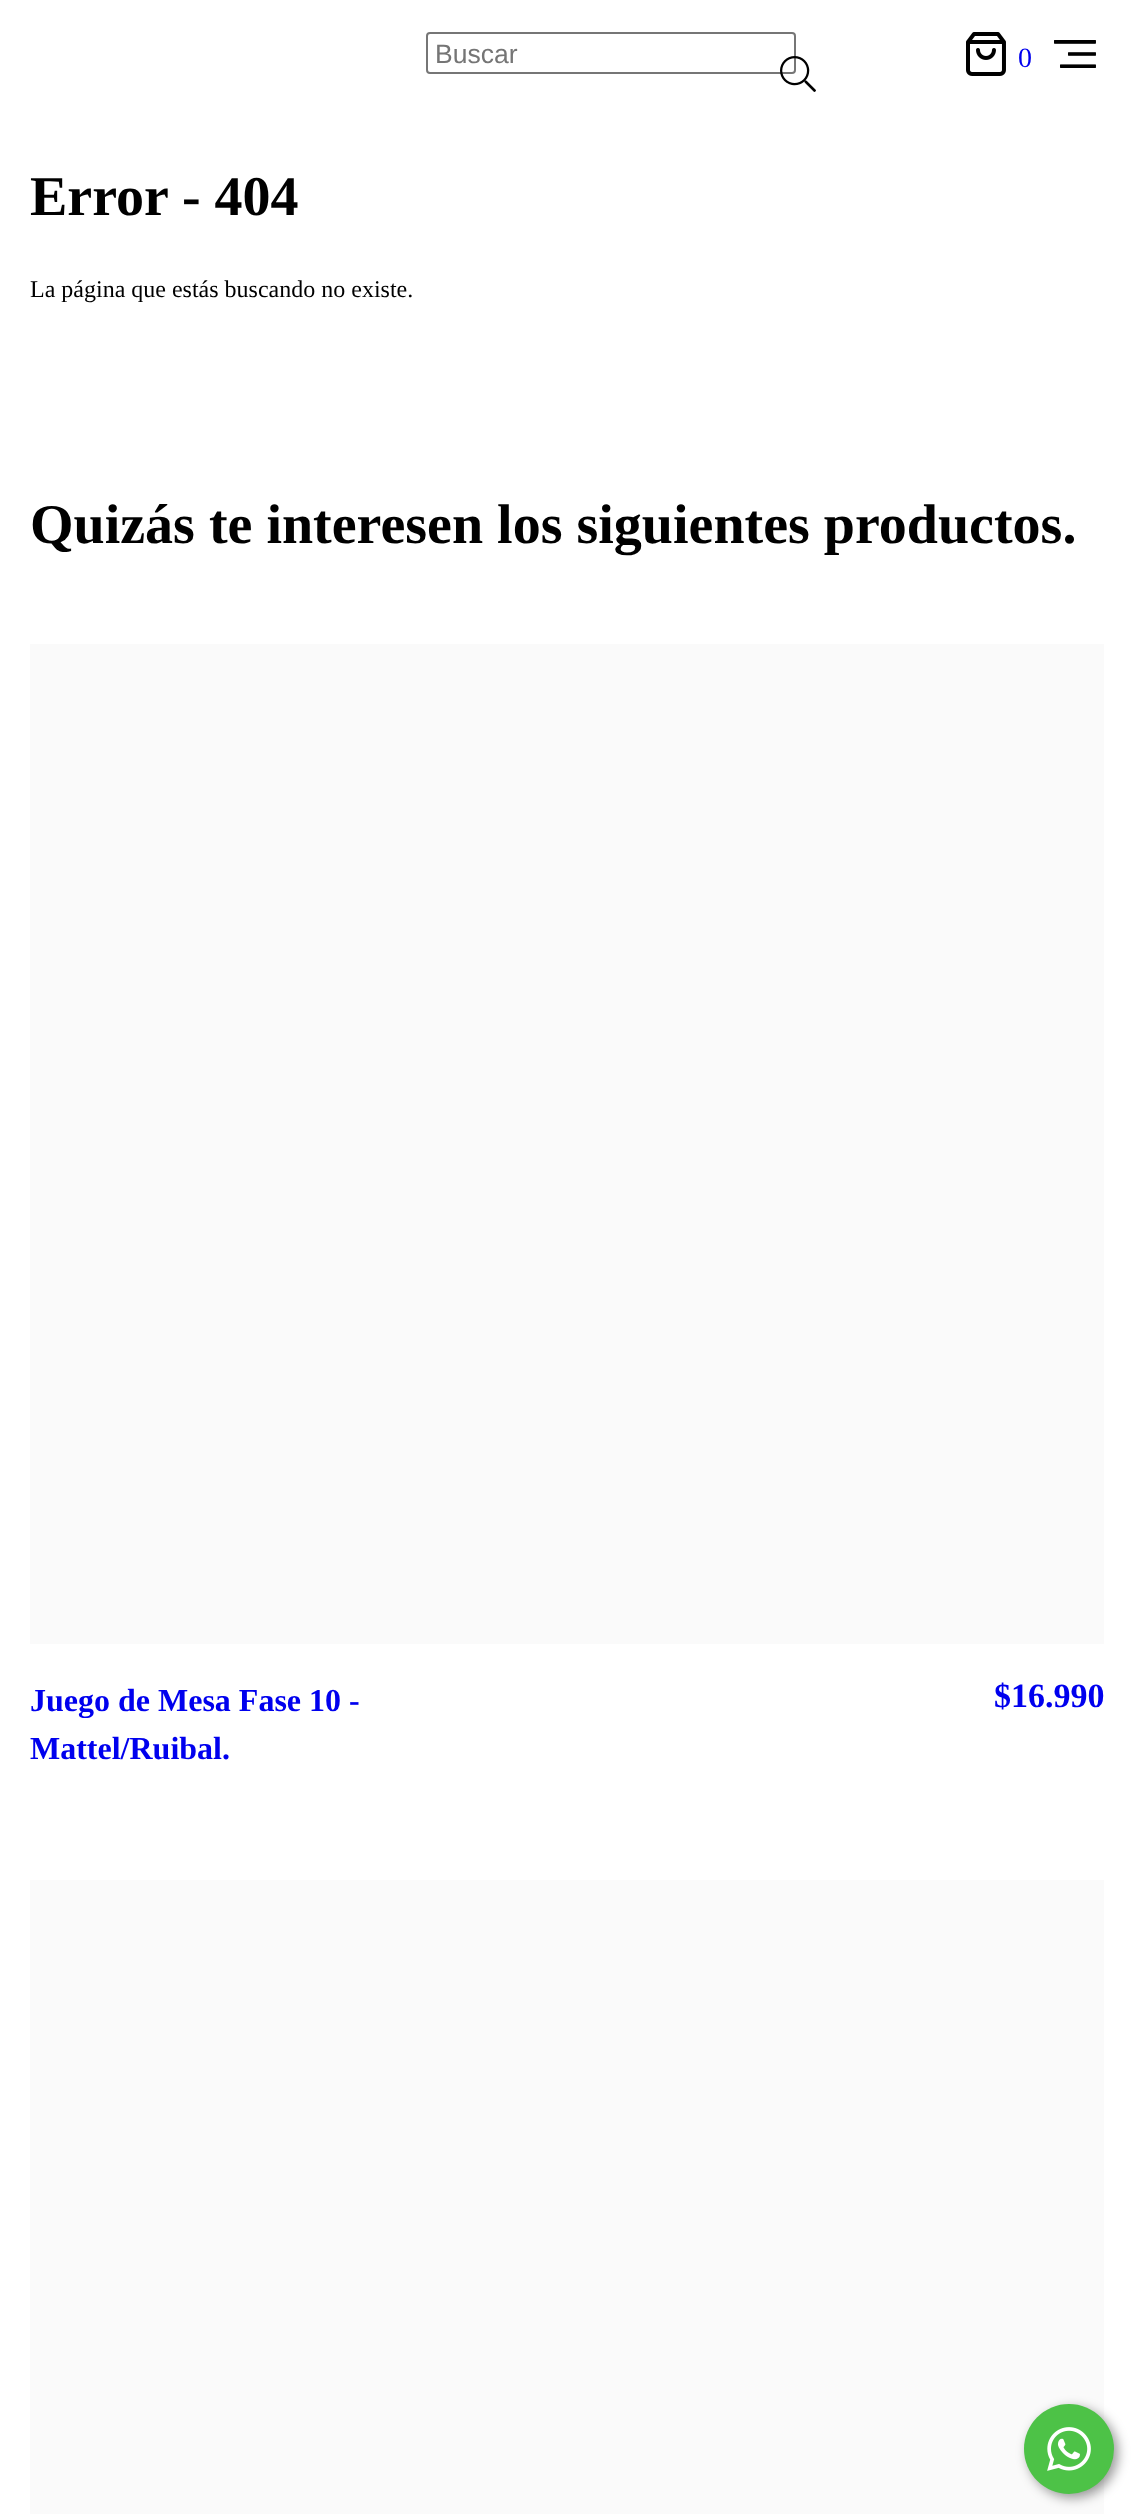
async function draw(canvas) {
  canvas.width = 1133
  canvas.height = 2514
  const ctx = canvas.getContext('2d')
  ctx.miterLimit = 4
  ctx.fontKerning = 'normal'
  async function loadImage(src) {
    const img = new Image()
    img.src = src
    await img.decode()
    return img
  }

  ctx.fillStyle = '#fff'
  ctx.fillRect(0, 0, 1133, 2514)
  ctx.beginPath()
  ctx.roundRect(427, 33, 368, 40, 3)
  ctx.strokeStyle = '#767676'
  ctx.lineWidth = 2
  ctx.stroke()
  ctx.font = '26.5px Liberation Sans'
  ctx.fillStyle = '#757575'
  ctx.fillText('Buscar', 435, 63)
  ctx.drawImage(await loadImage('image0.png'), 780, 56, 36, 36)
  ctx.drawImage(await loadImage('image1.png'), 966, 32, 40, 44)
  ctx.font = '28px Liberation Serif'
  ctx.fillStyle = '#00e'
  ctx.fillText('0', 1018, 67)
  ctx.drawImage(await loadImage('image2.png'), 1054, 40, 42, 28)
  ctx.font = 'bold 56px Liberation Serif'
  ctx.fillStyle = '#000'
  ctx.fillText('Error - 404', 30, 215)
  ctx.font = '24px Liberation Serif'
  ctx.fillText('La página que estás buscando no existe.', 30, 297)
  ctx.font = 'bold 56px Liberation Serif'
  ctx.fillText('Quizás te interesen los siguientes productos.', 30, 543)
  ctx.fillStyle = '#fafafa'
  ctx.fillRect(30, 644, 1074, 1000)
  ctx.font = 'bold 32px Liberation Serif'
  ctx.fillStyle = '#00e'
  ctx.fillText('Juego de Mesa Fase 10 -', 30, 1711)
  ctx.fillText('Mattel/Ruibal.', 30, 1759)
  ctx.font = 'bold 34px Liberation Serif'
  ctx.fillText('$16.990', 994, 1707)
  ctx.fillStyle = '#fafafa'
  ctx.fillRect(30, 1880, 1074, 634)
  ctx.fillStyle = '#00000066'
  ctx.filter = 'blur(6px)'
  ctx.beginPath()
  ctx.roundRect(1028, 2408, 90, 90, 45)
  ctx.fill()
  ctx.filter = 'none'
  ctx.fillStyle = '#4dc247'
  ctx.beginPath()
  ctx.arc(1069, 2449, 45, 0, 2 * Math.PI)
  ctx.fill()
  ctx.drawImage(await loadImage('image3.png'), 1047, 2427, 44, 44)
}

draw(document.querySelector('canvas'))
